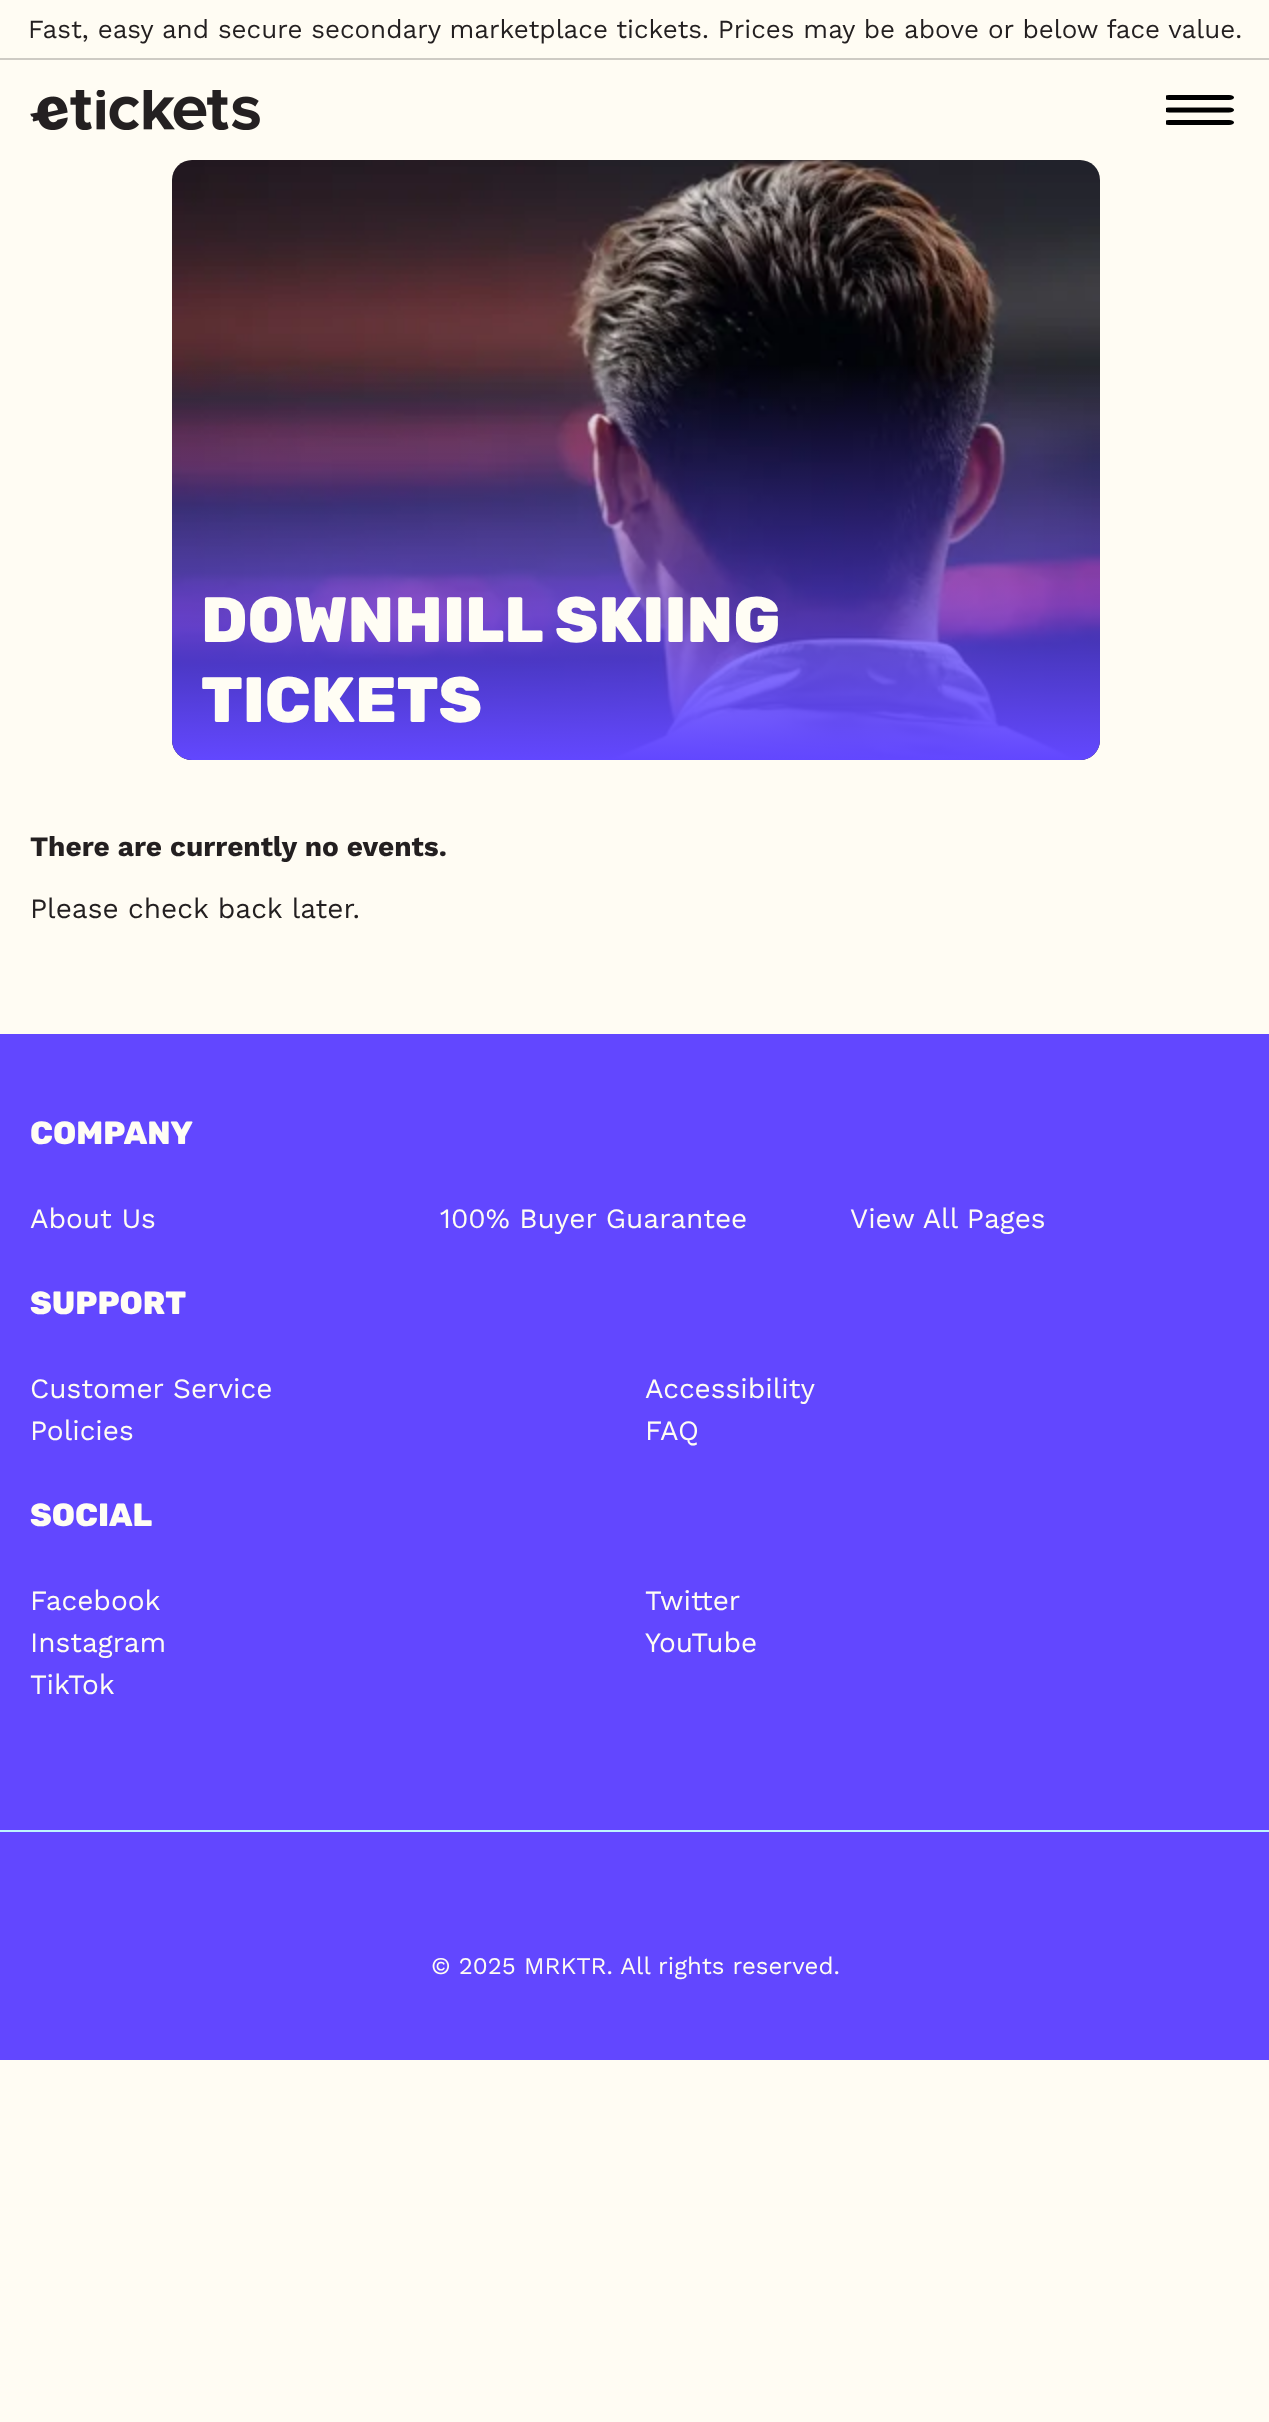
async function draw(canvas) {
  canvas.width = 1269
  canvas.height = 2422
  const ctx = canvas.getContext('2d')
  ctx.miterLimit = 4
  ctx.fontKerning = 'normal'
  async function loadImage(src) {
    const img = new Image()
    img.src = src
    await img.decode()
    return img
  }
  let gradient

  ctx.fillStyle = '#fffcf3'
  ctx.fillRect(0, 0, 1269, 2422)
  ctx.fillStyle = '#cecbc4'
  ctx.fillRect(0, 58, 1269, 2)
  ctx.font = '26px Work Sans'
  ctx.fillStyle = '#231f20'
  ctx.fillText('Fast, easy and secure secondary marketplace tickets. Prices may be above or below face value.', 28, 38)
  ctx.drawImage(await loadImage('image0.png'), 30, 90, 230, 40)
  ctx.drawImage(await loadImage('image1.png'), 1166, 95, 68, 30)
  ctx.drawImage(await loadImage('image2.png'), 172, 160, 928, 600)
  gradient = ctx.createLinearGradient(636, 160, 636, 760)
  gradient.addColorStop(0.34, '#6247ff00')
  gradient.addColorStop(1, '#6247ff')
  ctx.fillStyle = gradient
  ctx.beginPath()
  ctx.roundRect(172, 160, 928, 600, 20)
  ctx.fill()
  ctx.font = '800 64px Rubik'
  ctx.fillStyle = '#fffdf4'
  ctx.fillText('DOWNHILL SKIING', 201, 642)
  ctx.fillText('TICKETS', 201, 722)
  ctx.font = 'bold 28px Work Sans'
  ctx.fillStyle = '#231f20'
  ctx.fillText('There are currently no events.', 30, 856)
  ctx.font = '28px Work Sans'
  ctx.fillText('Please check back later.', 30, 918)
  ctx.fillStyle = '#6247ff'
  ctx.fillRect(0, 1034, 1269, 1026)
  ctx.fillStyle = '#bef5fe'
  ctx.fillRect(0, 1830, 1269, 2)
  ctx.font = '800 32px Rubik'
  ctx.fillStyle = '#fffdf4'
  ctx.fillText('COMPANY', 30, 1144)
  ctx.font = '28px Work Sans'
  ctx.fillText('About Us', 30, 1228)
  ctx.fillText('100% Buyer Guarantee', 440, 1228)
  ctx.fillText('View All Pages', 850, 1228)
  ctx.font = '800 32px Rubik'
  ctx.fillText('SUPPORT', 30, 1314)
  ctx.font = '28px Work Sans'
  ctx.fillText('Customer Service', 30, 1398)
  ctx.fillText('Policies', 30, 1440)
  ctx.fillText('Accessibility', 645, 1398)
  ctx.fillText('FAQ', 645, 1440)
  ctx.font = '800 32px Rubik'
  ctx.fillText('SOCIAL', 30, 1526)
  ctx.font = '28px Work Sans'
  ctx.fillText('Facebook', 30, 1610)
  ctx.fillText('Instagram', 30, 1652)
  ctx.fillText('TikTok', 30, 1694)
  ctx.fillText('Twitter', 645, 1610)
  ctx.fillText('YouTube', 645, 1652)
  ctx.font = '24px Work Sans'
  ctx.fillText('© 2025 MRKTR. All rights reserved.', 431, 1974)
}

draw(document.querySelector('canvas'))
